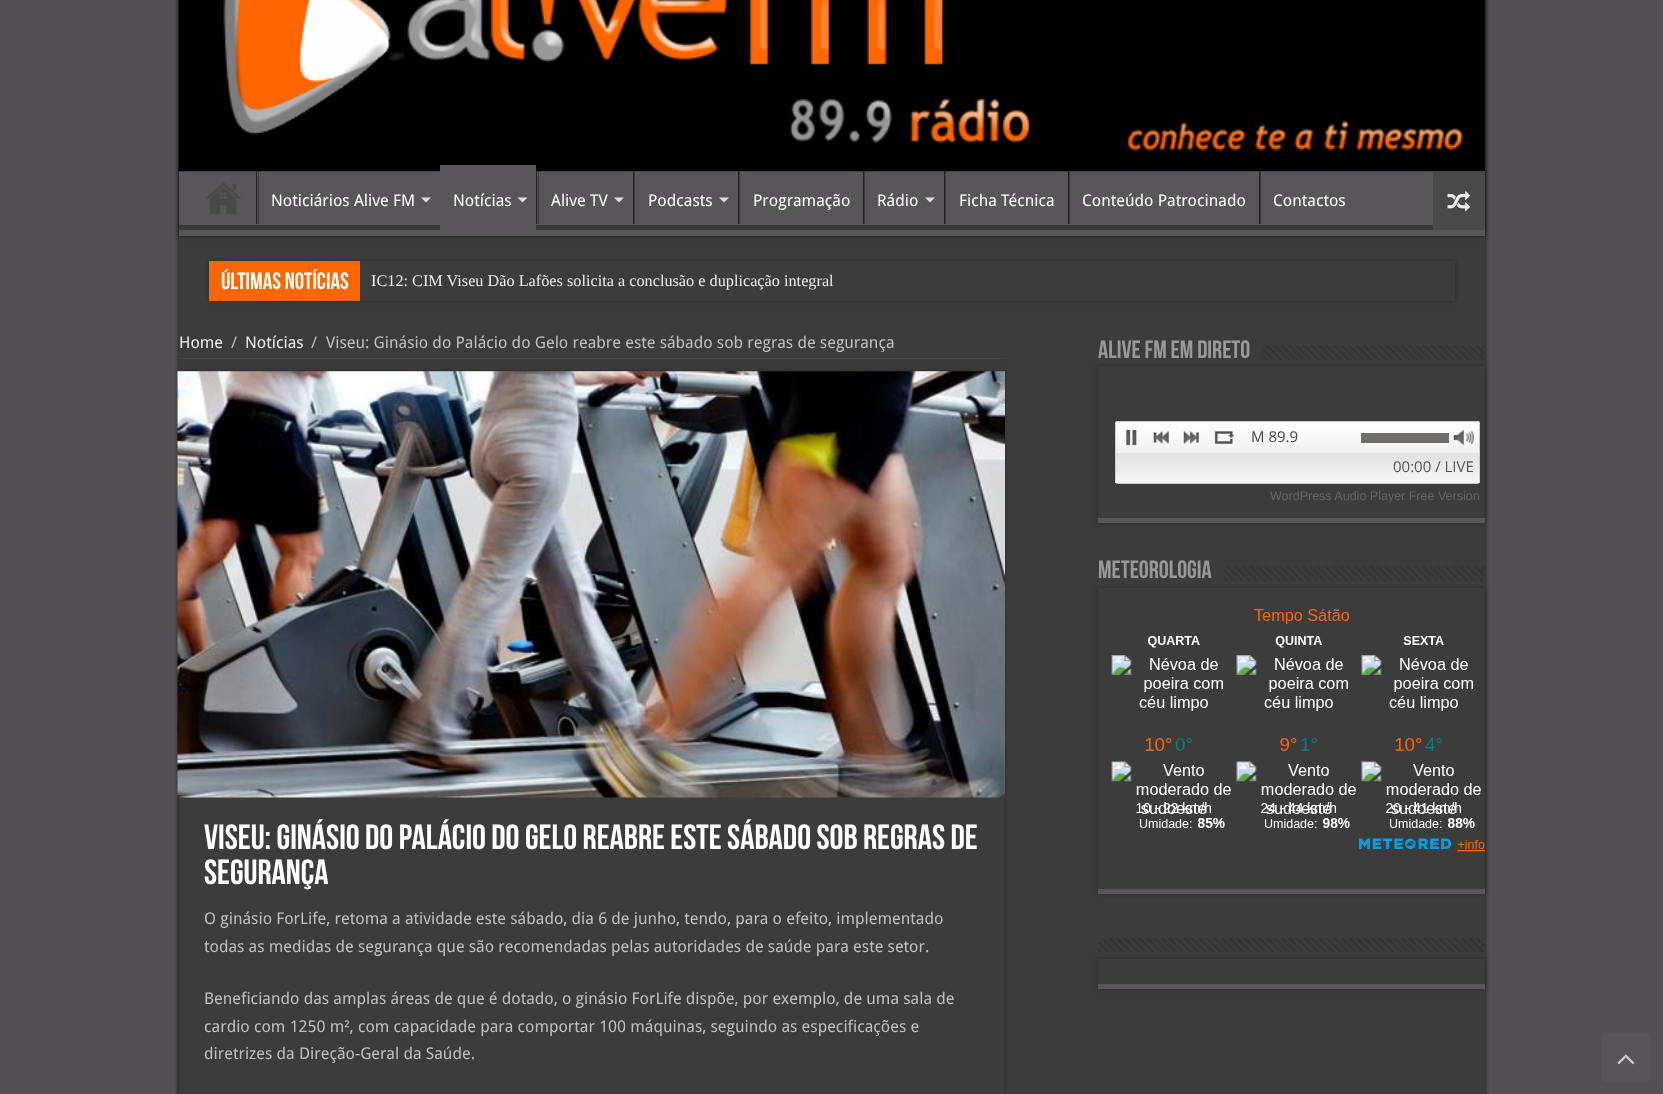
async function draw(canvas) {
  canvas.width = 1663
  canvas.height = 1094
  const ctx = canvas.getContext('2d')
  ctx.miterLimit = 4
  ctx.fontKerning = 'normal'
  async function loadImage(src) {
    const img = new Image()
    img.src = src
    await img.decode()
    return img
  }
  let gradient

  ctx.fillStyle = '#545054'
  ctx.fillRect(0, 0, 1663, 1094)
  ctx.fillStyle = '#141414'
  ctx.filter = 'blur(2px)'
  ctx.beginPath()
  ctx.rect(179, -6, 1306, 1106)
  ctx.fill()
  ctx.filter = 'none'
  ctx.fillStyle = '#3c3c3c'
  ctx.fillRect(179, 236, 1306, 858)
  ctx.fillStyle = '#141414'
  ctx.filter = 'blur(2px)'
  ctx.beginPath()
  ctx.rect(179, -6, 1306, 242)
  ctx.fill()
  ctx.filter = 'none'
  ctx.fillStyle = '#595659'
  ctx.fillRect(179, 171, 1306, 65)
  ctx.drawImage(await loadImage('image0.png'), 178, 0, 1307, 172)
  ctx.save()
  ctx.beginPath()
  ctx.rect(179, 171, 1306, 59)
  ctx.clip()
  ctx.fillStyle = '#393939'
  ctx.beginPath()
  ctx.moveTo(55, 48)
  ctx.lineTo(1609, 48)
  ctx.lineTo(1609, 354)
  ctx.lineTo(55, 354)
  ctx.closePath()
  ctx.moveTo(178, 164)
  ctx.lineTo(1484, 164)
  ctx.bezierCurveTo(1484, 164, 1485, 164, 1485, 165)
  ctx.lineTo(1485, 224)
  ctx.bezierCurveTo(1485, 224, 1484, 225, 1484, 225)
  ctx.lineTo(178, 225)
  ctx.bezierCurveTo(177, 225, 176, 224, 176, 224)
  ctx.lineTo(176, 165)
  ctx.bezierCurveTo(176, 164, 177, 164, 178, 164)
  ctx.closePath()
  ctx.fill('evenodd')
  ctx.restore()
  ctx.drawImage(await loadImage('image1.png'), 205, 182, 36, 32)
  ctx.fillStyle = '#222'
  ctx.fillRect(256, 171, 1, 53)
  ctx.fillStyle = '#383838'
  ctx.fillRect(258, 171, 1, 53)
  ctx.font = '16.25px Droid Sans'
  ctx.fillStyle = '#fff'
  ctx.fillText('Noticiários Alive FM', 271, 206)
  ctx.fillStyle = '#ddd'
  ctx.beginPath()
  ctx.moveTo(421, 197.5)
  ctx.lineTo(431, 197.5)
  ctx.lineTo(426, 202.5)
  ctx.closePath()
  ctx.fill()
  ctx.fillStyle = '#595659'
  ctx.fillRect(440, 165, 96, 65)
  ctx.fillStyle = '#fff'
  ctx.fillText('Notícias', 453, 206)
  ctx.fillStyle = '#ddd'
  ctx.beginPath()
  ctx.moveTo(517.5, 197.5)
  ctx.lineTo(527.5, 197.5)
  ctx.lineTo(522.5, 202.5)
  ctx.closePath()
  ctx.fill()
  ctx.fillStyle = '#222'
  ctx.fillRect(536, 171, 1, 53)
  ctx.fillStyle = '#383838'
  ctx.fillRect(538, 171, 1, 53)
  ctx.fillStyle = '#fff'
  ctx.fillText('Alive TV', 551, 206)
  ctx.fillStyle = '#ddd'
  ctx.beginPath()
  ctx.moveTo(614, 197.5)
  ctx.lineTo(624, 197.5)
  ctx.lineTo(619, 202.5)
  ctx.closePath()
  ctx.fill()
  ctx.fillStyle = '#222'
  ctx.fillRect(633, 171, 1, 53)
  ctx.fillStyle = '#383838'
  ctx.fillRect(634, 171, 1, 53)
  ctx.fillStyle = '#fff'
  ctx.fillText('Podcasts', 648, 206)
  ctx.fillStyle = '#ddd'
  ctx.beginPath()
  ctx.moveTo(719, 197.5)
  ctx.lineTo(729, 197.5)
  ctx.lineTo(724, 202.5)
  ctx.closePath()
  ctx.fill()
  ctx.fillStyle = '#222'
  ctx.fillRect(738, 171, 1, 53)
  ctx.fillStyle = '#383838'
  ctx.fillRect(739, 171, 1, 53)
  ctx.fillStyle = '#fff'
  ctx.fillText('Programação', 753, 206)
  ctx.fillStyle = '#222'
  ctx.fillRect(863, 171, 1, 53)
  ctx.fillStyle = '#383838'
  ctx.fillRect(864, 171, 1, 53)
  ctx.fillStyle = '#fff'
  ctx.fillText('Rádio', 877, 206)
  ctx.fillStyle = '#ddd'
  ctx.beginPath()
  ctx.moveTo(925, 197.5)
  ctx.lineTo(935, 197.5)
  ctx.lineTo(930, 202.5)
  ctx.closePath()
  ctx.fill()
  ctx.fillStyle = '#222'
  ctx.fillRect(944, 171, 1, 53)
  ctx.fillStyle = '#383838'
  ctx.fillRect(945, 171, 1, 53)
  ctx.fillStyle = '#fff'
  ctx.fillText('Ficha Técnica', 959, 206)
  ctx.fillStyle = '#222'
  ctx.fillRect(1068, 171, 1, 53)
  ctx.fillStyle = '#383838'
  ctx.fillRect(1069, 171, 1, 53)
  ctx.fillStyle = '#fff'
  ctx.fillText('Conteúdo Patrocinado', 1082, 206)
  ctx.fillStyle = '#222'
  ctx.fillRect(1259, 171, 1, 53)
  ctx.fillStyle = '#383838'
  ctx.fillRect(1260, 171, 1, 53)
  ctx.fillStyle = '#fff'
  ctx.fillText('Contactos', 1273, 206)
  ctx.fillStyle = '#494949'
  ctx.fillRect(1433, 171, 52, 59)
  ctx.drawImage(await loadImage('image2.png'), 1447, 191, 23, 21)
  ctx.fillStyle = '#2a2a2a'
  ctx.filter = 'blur(2px)'
  ctx.beginPath()
  ctx.rect(209, 261, 1246, 40)
  ctx.fill()
  ctx.filter = 'none'
  ctx.fillStyle = '#3c3c3c'
  ctx.fillRect(360, 261, 1095, 40)
  ctx.fillStyle = '#f60'
  ctx.fillRect(209, 261, 151, 40)
  ctx.font = 'bold 23.5px Bebas Neue'
  ctx.fillStyle = '#fff'
  ctx.fillText('últimas Notícias', 221, 289)
  ctx.font = '16.25px Liberation Serif'
  ctx.fillStyle = '#ececec'
  ctx.fillText('IC12: CIM Viseu Dão Lafões solicita a conclusão e duplicação integral', 371, 286)
  ctx.fillStyle = '#474747'
  ctx.fillRect(179, 358, 825, 1)
  ctx.font = '16.25px Droid Sans'
  ctx.fillStyle = '#ececec'
  ctx.fillText('Home', 179, 348)
  ctx.fillStyle = '#bfbfbf'
  ctx.fillText('/', 231, 348)
  ctx.fillStyle = '#ececec'
  ctx.fillText('Notícias', 245, 348)
  ctx.fillStyle = '#bfbfbf'
  ctx.fillText('/', 311, 348)
  ctx.fillText('Viseu: Ginásio do Palácio do Gelo reabre este sábado sob regras de segurança', 326, 348)
  ctx.fillStyle = '#2a2a2a'
  ctx.filter = 'blur(2px)'
  ctx.beginPath()
  ctx.rect(179, 371, 825, 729)
  ctx.fill()
  ctx.filter = 'none'
  ctx.fillStyle = '#3c3c3c'
  ctx.fillRect(179, 371, 825, 723)
  ctx.drawImage(await loadImage('image3.png'), 177, 371, 828, 427)
  ctx.font = 'bold 35px Bebas Neue'
  ctx.fillStyle = '#fff'
  ctx.fillText('Viseu: Ginásio do Palácio do Gelo reabre este sábado sob regras de', 204, 849)
  ctx.fillText('segurança', 204, 884)
  ctx.font = '16.25px Droid Sans'
  ctx.fillStyle = '#bfbfbf'
  ctx.fillText('O ginásio ForLife, retoma a atividade este sábado, dia 6 de junho, tendo, para o efeito, implementado', 204, 924)
  ctx.fillText('todas as medidas de segurança que são recomendadas pelas autoridades de saúde para este setor.', 204, 952)
  ctx.fillText('Beneficiando das amplas áreas de que é dotado, o ginásio ForLife dispõe, por exemplo, de uma sala de', 204, 1004)
  ctx.fillText('cardio com 1250 m², com capacidade para comportar 100 máquinas, seguindo as especificações e', 204, 1032)
  ctx.fillText('diretrizes da Direção-Geral da Saúde.', 204, 1059)
  ctx.font = 'bold 25px Bebas Neue'
  ctx.fillStyle = '#999'
  ctx.fillText('Alive FM em Direto', 1098, 358)
  ctx.fillStyle = '#2a2a2a'
  ctx.filter = 'blur(2px)'
  ctx.beginPath()
  ctx.rect(1098, 366, 387, 157)
  ctx.fill()
  ctx.filter = 'none'
  ctx.drawImage(await loadImage('image4.png'), 1263, 345, 222, 15)
  ctx.fillStyle = '#3c3c3c'
  ctx.fillRect(1098, 366, 387, 152)
  ctx.fillStyle = '#595659'
  ctx.fillRect(1098, 518, 387, 5)
  ctx.save()
  ctx.beginPath()
  ctx.roundRect(1115, 421, 365, 63, 2.5)
  ctx.clip()
  gradient = ctx.createLinearGradient(1298, 363, 1298, 423)
  gradient.addColorStop(0, '#fff')
  gradient.addColorStop(0.5, '#f1f1f1')
  gradient.addColorStop(0.51, '#e1e1e1')
  gradient.addColorStop(1, '#f6f6f6')
  ctx.fillStyle = gradient
  ctx.fillRect(1115, 421, 365, 2)
  ctx.restore()
  gradient = ctx.createLinearGradient(1298, 423, 1298, 483)
  gradient.addColorStop(0, '#fff')
  gradient.addColorStop(0.5, '#f1f1f1')
  gradient.addColorStop(0.51, '#e1e1e1')
  gradient.addColorStop(1, '#f6f6f6')
  ctx.fillStyle = gradient
  ctx.fillRect(1115, 423, 365, 60)
  ctx.beginPath()
  ctx.roundRect(1115.5, 421.5, 364, 62, 2)
  ctx.strokeStyle = '#cbcbcb'
  ctx.stroke()
  ctx.drawImage(await loadImage('image5.png'), 1126, 429, 11, 17)
  ctx.drawImage(await loadImage('image6.png'), 1153, 431, 16, 13)
  ctx.drawImage(await loadImage('image7.png'), 1183, 431, 16, 13)
  ctx.drawImage(await loadImage('image8.png'), 1214, 431, 20, 13)
  ctx.font = '15px Open Sans'
  ctx.fillStyle = '#444'
  ctx.fillText('M 89.9', 1251, 442)
  ctx.fillStyle = '#706d6d'
  ctx.fillRect(1361, 433, 88, 10)
  ctx.drawImage(await loadImage('image9.png'), 1453, 429, 21, 17)
  ctx.fillStyle = '#555'
  ctx.fillText('00:00 / LIVE', 1393, 472)
  ctx.font = '12.5px Liberation Sans'
  ctx.fillStyle = '#666'
  ctx.fillText('WordPress Audio Player Free Version', 1270, 500)
  ctx.font = 'bold 25px Bebas Neue'
  ctx.fillStyle = '#999'
  ctx.fillText('Meteorologia', 1098, 578)
  ctx.drawImage(await loadImage('image10.png'), 1224, 566, 261, 15)
  ctx.fillStyle = '#2a2a2a'
  ctx.filter = 'blur(2px)'
  ctx.beginPath()
  ctx.rect(1098, 588, 387, 306)
  ctx.fill()
  ctx.filter = 'none'
  ctx.fillStyle = '#3c3c3c'
  ctx.fillRect(1098, 588, 387, 301)
  ctx.fillStyle = '#595659'
  ctx.fillRect(1098, 889, 387, 5)
  ctx.drawImage(await loadImage('image11.png'), 1111, 609, 374, 243)
  ctx.drawImage(await loadImage('image12.png'), 1098, 938, 387, 14)
  ctx.fillStyle = '#2a2a2a'
  ctx.filter = 'blur(2px)'
  ctx.beginPath()
  ctx.rect(1098, 959, 387, 30)
  ctx.fill()
  ctx.filter = 'none'
  ctx.fillStyle = '#3c3c3c'
  ctx.fillRect(1098, 959, 387, 25)
  ctx.fillStyle = '#595659'
  ctx.fillRect(1098, 984, 387, 5)
  ctx.fillStyle = '#585458'
  ctx.beginPath()
  ctx.roundRect(1601, 1033, 50, 50, 6)
  ctx.fill()
  ctx.drawImage(await loadImage('image13.png'), 1617, 1054, 18, 11)
}

draw(document.querySelector('canvas'))
